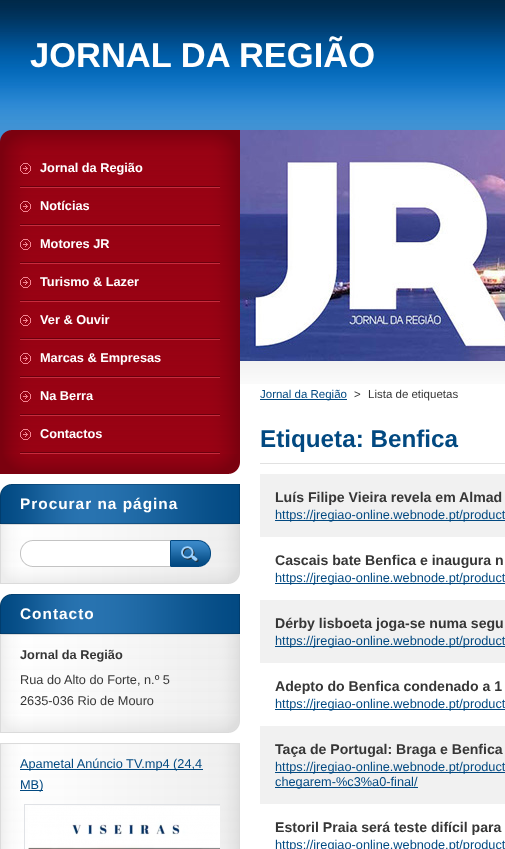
async function draw(canvas) {
  canvas.width = 505
  canvas.height = 849
  const ctx = canvas.getContext('2d')
  ctx.miterLimit = 4
  ctx.fontKerning = 'normal'
  async function loadImage(src) {
    const img = new Image()
    img.src = src
    await img.decode()
    return img
  }

  ctx.fillStyle = '#fff'
  ctx.fillRect(0, 0, 505, 849)
  ctx.drawImage(await loadImage('image0.png'), 0, 0, 505, 384)
  ctx.font = 'bold 34.5px Liberation Sans'
  ctx.fillText('JORNAL DA REGIÃO', 30, 67)
  ctx.drawImage(await loadImage('image1.png'), 0, 130, 240, 20)
  ctx.drawImage(await loadImage('image2.png'), 0, 454, 240, 20)
  ctx.drawImage(await loadImage('image3.png'), 0, 150, 240, 304)
  ctx.drawImage(await loadImage('image4.png'), 20, 186, 200, 2)
  ctx.drawImage(await loadImage('image5.png'), 20, 163, 11, 11)
  ctx.font = 'bold 12.75px Liberation Sans'
  ctx.fillText('Jornal da Região', 40, 172)
  ctx.drawImage(await loadImage('image4.png'), 20, 224, 200, 2)
  ctx.drawImage(await loadImage('image5.png'), 20, 201, 11, 11)
  ctx.fillText('Notícias', 40, 210)
  ctx.drawImage(await loadImage('image4.png'), 20, 262, 200, 2)
  ctx.drawImage(await loadImage('image5.png'), 20, 239, 11, 11)
  ctx.fillText('Motores JR', 40, 248)
  ctx.drawImage(await loadImage('image4.png'), 20, 300, 200, 2)
  ctx.drawImage(await loadImage('image5.png'), 20, 277, 11, 11)
  ctx.fillText('Turismo & Lazer', 40, 286)
  ctx.drawImage(await loadImage('image4.png'), 20, 338, 200, 2)
  ctx.drawImage(await loadImage('image5.png'), 20, 315, 11, 11)
  ctx.fillText('Ver & Ouvir', 40, 324)
  ctx.drawImage(await loadImage('image4.png'), 20, 376, 200, 2)
  ctx.drawImage(await loadImage('image5.png'), 20, 353, 11, 11)
  ctx.fillText('Marcas & Empresas', 40, 362)
  ctx.drawImage(await loadImage('image4.png'), 20, 414, 200, 2)
  ctx.drawImage(await loadImage('image5.png'), 20, 391, 11, 11)
  ctx.fillText('Na Berra', 40, 400)
  ctx.drawImage(await loadImage('image4.png'), 20, 452, 200, 2)
  ctx.drawImage(await loadImage('image5.png'), 20, 429, 11, 11)
  ctx.fillText('Contactos', 40, 438)
  ctx.drawImage(await loadImage('image6.png'), 0, 567, 240, 17)
  ctx.drawImage(await loadImage('image7.png'), 0, 484, 240, 40)
  ctx.letterSpacing = '1px'
  ctx.font = 'bold 15.4px Liberation Sans'
  ctx.fillText('Procurar na página', 20, 509)
  ctx.drawImage(await loadImage('image8.png'), 0, 525, 240, 42)
  ctx.fillStyle = '#dbdbdb'
  ctx.fillRect(0, 524, 240, 1)
  ctx.drawImage(await loadImage('image9.png'), 20, 540, 150, 27)
  ctx.drawImage(await loadImage('image10.png'), 170, 540, 41, 27)
  ctx.drawImage(await loadImage('image6.png'), 0, 716, 240, 17)
  ctx.drawImage(await loadImage('image7.png'), 0, 594, 240, 40)
  ctx.fillStyle = '#fff'
  ctx.fillText('Contacto', 20, 619)
  ctx.drawImage(await loadImage('image11.png'), 0, 635, 240, 81)
  ctx.fillStyle = '#dbdbdb'
  ctx.fillRect(0, 634, 240, 1)
  ctx.letterSpacing = '0px'
  ctx.font = 'bold 12.75px Liberation Sans'
  ctx.fillStyle = '#363636'
  ctx.fillText('Jornal da Região', 20, 659)
  ctx.font = '12.75px Liberation Sans'
  ctx.fillText('Rua do Alto do Forte, n.º 5', 20, 684)
  ctx.fillText('2635-036 Rio de Mouro', 20, 705)
  ctx.drawImage(await loadImage('image12.png'), 0, 744, 240, 105)
  ctx.fillStyle = '#dbdbdb'
  ctx.fillRect(0, 743, 240, 1)
  ctx.fillStyle = '#024981'
  ctx.fillRect(20, 769, 183, 1)
  ctx.fillText('Apametal Anúncio TV.mp4 (24,4', 20, 768)
  ctx.fillRect(20, 790, 23, 1)
  ctx.fillText('MB)', 20, 789)
  ctx.save()
  ctx.beginPath()
  ctx.rect(20, 744, 200, 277)
  ctx.clip()
  ctx.strokeStyle = '#e0e2e6'
  ctx.strokeRect(24.5, 804.5, 203, 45)
  ctx.restore()
  ctx.drawImage(await loadImage('image13.png'), 28, 806, 192, 43)
  ctx.drawImage(await loadImage('image14.png'), 240, 130, 265, 231)
  ctx.fillRect(260, 399, 87, 1)
  ctx.font = '11.5px Liberation Sans'
  ctx.fillText('Jornal da Região', 260, 398)
  ctx.fillStyle = '#363636'
  ctx.fillText('>', 354, 398)
  ctx.fillText('Lista de etiquetas', 368, 398)
  ctx.fillStyle = '#e1e1e1'
  ctx.fillRect(260, 463, 245, 1)
  ctx.font = 'bold 24.25px Liberation Sans'
  ctx.fillStyle = '#024981'
  ctx.fillText('Etiqueta: Benfica', 260, 447)
  ctx.fillStyle = '#f1f1f1'
  ctx.fillRect(260, 474, 245, 63)
  ctx.font = 'bold 14.1px Liberation Sans'
  ctx.fillStyle = '#363636'
  ctx.fillText('Luís Filipe Vieira revela em Almad', 275, 502)
  ctx.fillStyle = '#024981'
  ctx.fillRect(275, 520, 230, 1)
  ctx.font = '12.75px Liberation Sans'
  ctx.fillText('https://jregiao-online.webnode.pt/product', 275, 519)
  ctx.font = 'bold 14.1px Liberation Sans'
  ctx.fillStyle = '#363636'
  ctx.fillText('Cascais bate Benfica e inaugura n', 275, 565)
  ctx.fillStyle = '#024981'
  ctx.fillRect(275, 583, 230, 1)
  ctx.font = '12.75px Liberation Sans'
  ctx.fillText('https://jregiao-online.webnode.pt/product', 275, 582)
  ctx.fillStyle = '#f1f1f1'
  ctx.fillRect(260, 600, 245, 63)
  ctx.font = 'bold 14.1px Liberation Sans'
  ctx.fillStyle = '#363636'
  ctx.fillText('Dérby lisboeta joga-se numa segu', 275, 628)
  ctx.fillStyle = '#024981'
  ctx.fillRect(275, 646, 230, 1)
  ctx.font = '12.75px Liberation Sans'
  ctx.fillText('https://jregiao-online.webnode.pt/product', 275, 645)
  ctx.font = 'bold 14.1px Liberation Sans'
  ctx.fillStyle = '#363636'
  ctx.fillText('Adepto do Benfica condenado a 1', 275, 691)
  ctx.fillStyle = '#024981'
  ctx.fillRect(275, 709, 230, 1)
  ctx.font = '12.75px Liberation Sans'
  ctx.fillText('https://jregiao-online.webnode.pt/product', 275, 708)
  ctx.fillStyle = '#f1f1f1'
  ctx.fillRect(260, 726, 245, 78)
  ctx.font = 'bold 14.1px Liberation Sans'
  ctx.fillStyle = '#363636'
  ctx.fillText('Taça de Portugal: Braga e Benfica', 275, 754)
  ctx.fillStyle = '#024981'
  ctx.fillRect(275, 772, 230, 1)
  ctx.font = '12.75px Liberation Sans'
  ctx.fillText('https://jregiao-online.webnode.pt/product', 275, 771)
  ctx.fillRect(275, 787, 143, 1)
  ctx.fillText('chegarem-%c3%a0-final/', 275, 786)
  ctx.font = 'bold 14.1px Liberation Sans'
  ctx.fillStyle = '#363636'
  ctx.fillText('Estoril Praia será teste difícil para', 275, 832)
  ctx.font = '12.75px Liberation Sans'
  ctx.fillStyle = '#024981'
  ctx.fillText('https://jregiao-online.webnode.pt/product', 275, 849)
}

draw(document.querySelector('canvas'))
